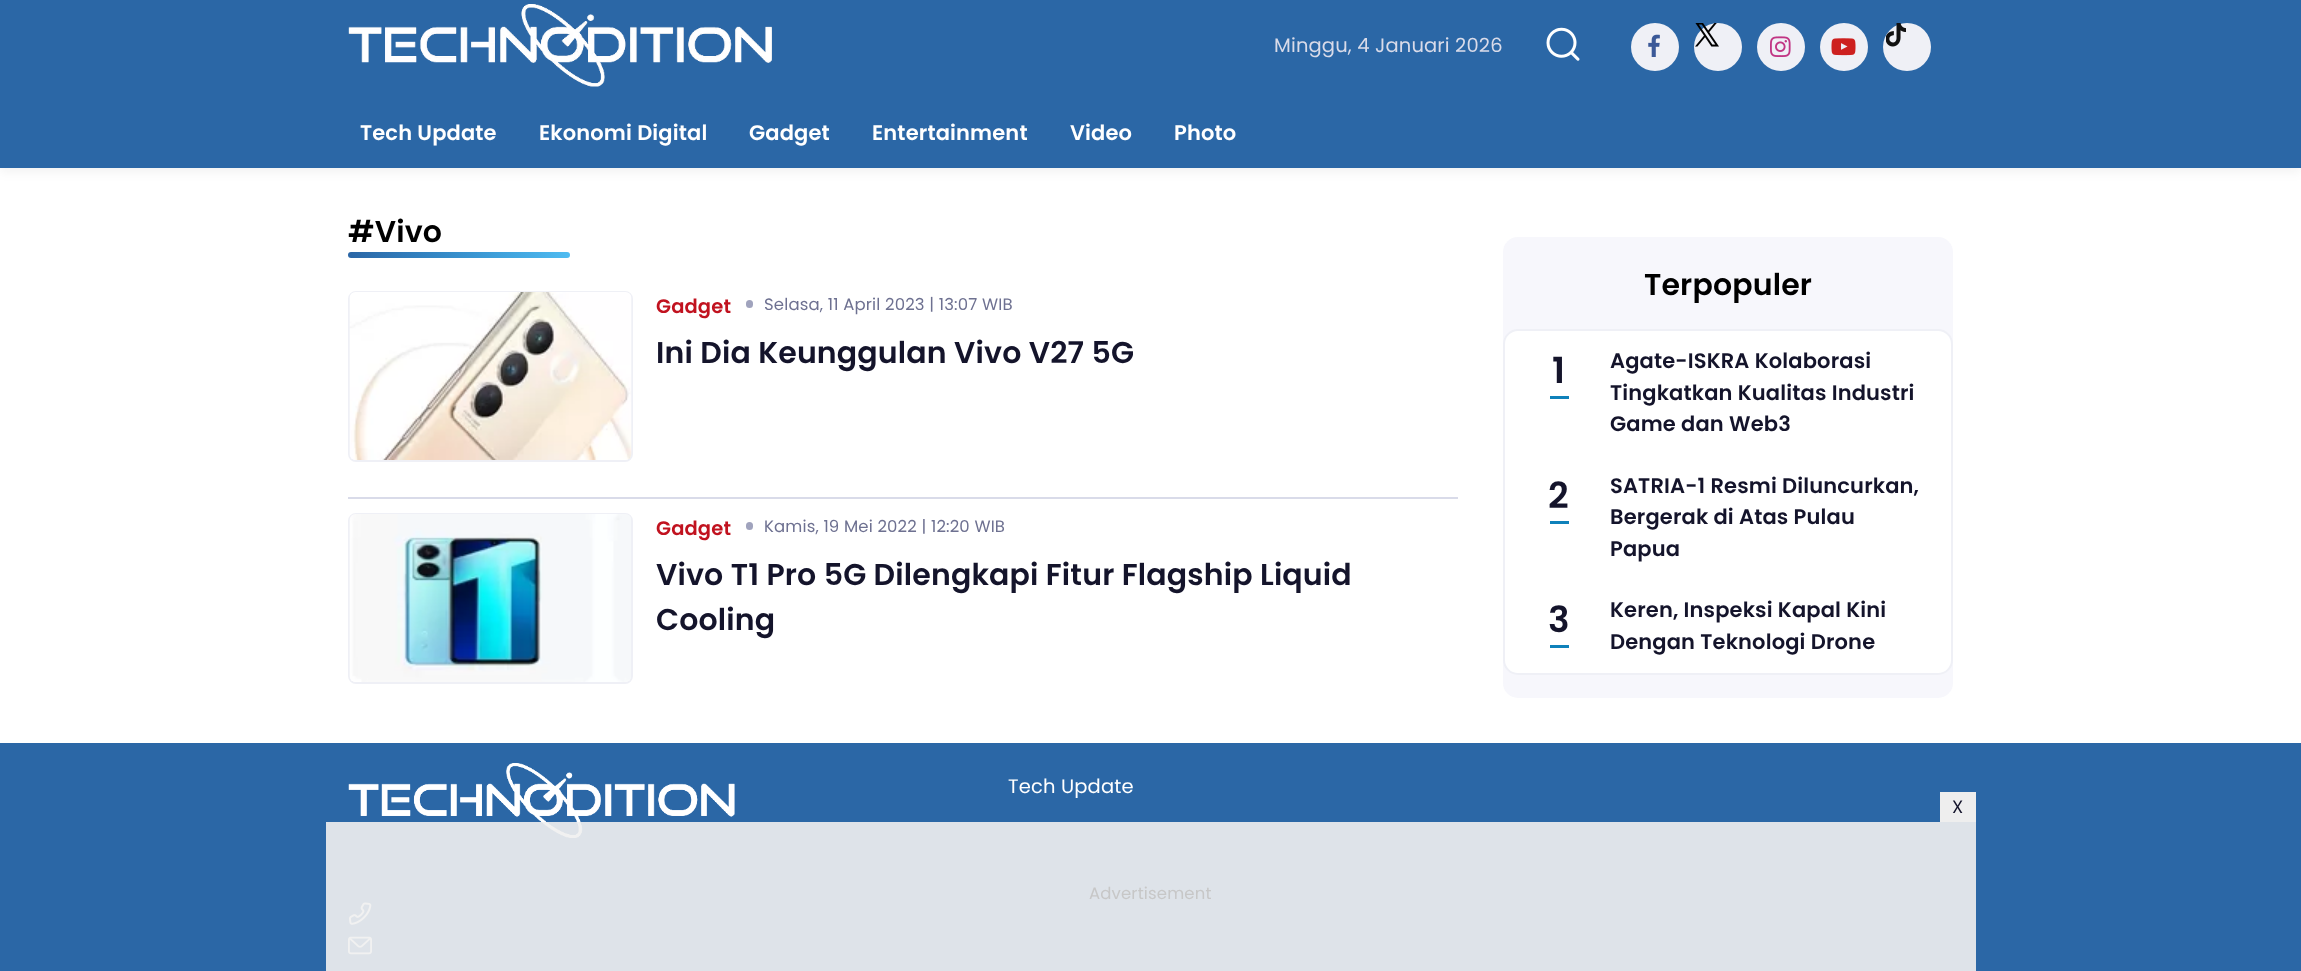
async function draw(canvas) {
  canvas.width = 2301
  canvas.height = 971
  const ctx = canvas.getContext('2d')
  ctx.miterLimit = 4
  ctx.fontKerning = 'normal'
  async function loadImage(src) {
    const img = new Image()
    img.src = src
    await img.decode()
    return img
  }
  let gradient

  ctx.fillStyle = '#fff'
  ctx.fillRect(0, 0, 2301, 971)
  ctx.fillStyle = '#0000000f'
  ctx.filter = 'blur(6px)'
  ctx.beginPath()
  ctx.rect(0, -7, 2301, 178)
  ctx.fill()
  ctx.filter = 'none'
  ctx.fillStyle = '#2b67a6'
  ctx.fillRect(0, 0, 2301, 168)
  ctx.drawImage(await loadImage('image0.png'), 348, 4, 424, 83)
  ctx.letterSpacing = '0.15px'
  ctx.font = '19.5px Poppins'
  ctx.fillStyle = '#d9dbe9'
  ctx.fillText('Minggu, 4 Januari 2026', 1274, 52)
  ctx.drawImage(await loadImage('image1.png'), 1546, 27, 34, 34)
  ctx.fillStyle = '#eff0f6'
  ctx.beginPath()
  ctx.arc(1655, 47, 24, 0, 2 * Math.PI)
  ctx.fill()
  ctx.drawImage(await loadImage('image2.png'), 1648, 34, 12, 23)
  ctx.beginPath()
  ctx.arc(1718, 47, 24, 0, 2 * Math.PI)
  ctx.fill()
  ctx.drawImage(await loadImage('image3.png'), 1695, 23, 24, 24)
  ctx.beginPath()
  ctx.arc(1781, 47, 24, 0, 2 * Math.PI)
  ctx.fill()
  ctx.drawImage(await loadImage('image4.png'), 1770, 36, 21, 21)
  ctx.beginPath()
  ctx.arc(1844, 47, 24, 0, 2 * Math.PI)
  ctx.fill()
  ctx.drawImage(await loadImage('image5.png'), 1831, 38, 25, 18)
  ctx.beginPath()
  ctx.arc(1907, 47, 24, 0, 2 * Math.PI)
  ctx.fill()
  ctx.drawImage(await loadImage('image6.png'), 1886, 23, 20, 24)
  ctx.font = '600 21px Poppins'
  ctx.fillStyle = '#fff'
  ctx.fillText('Tech Update', 360, 140)
  ctx.fillText('Ekonomi Digital', 539, 140)
  ctx.fillText('Gadget', 749, 140)
  ctx.fillText('Entertainment', 872, 140)
  ctx.fillText('Video', 1070, 140)
  ctx.fillText('Photo', 1174, 140)
  ctx.font = '600 30px Poppins'
  ctx.fillStyle = '#000'
  ctx.fillText('#Vivo', 348, 242)
  gradient = ctx.createLinearGradient(348, 255, 570, 255)
  gradient.addColorStop(0, '#2b66a6')
  gradient.addColorStop(0.14, '#2e72b1')
  gradient.addColorStop(0.29, '#317ebd')
  gradient.addColorStop(0.43, '#358ac7')
  gradient.addColorStop(0.57, '#3a96d2')
  gradient.addColorStop(0.71, '#40a3dd')
  gradient.addColorStop(0.86, '#47afe7')
  gradient.addColorStop(1, '#4fbcf1')
  ctx.fillStyle = gradient
  ctx.beginPath()
  ctx.roundRect(348, 252, 222, 6, 3)
  ctx.fill()
  ctx.beginPath()
  ctx.roundRect(349, 292, 283, 169, 7)
  ctx.strokeStyle = '#eff0f6'
  ctx.lineWidth = 2
  ctx.stroke()
  ctx.drawImage(await loadImage('image7.png'), 349, 292, 283, 168)
  ctx.font = '600 19.5px Poppins'
  ctx.fillStyle = '#c1121f'
  ctx.fillText('Gadget', 656, 313)
  ctx.fillStyle = '#a0a3bd'
  ctx.beginPath()
  ctx.roundRect(746, 300, 7, 8, 3.5)
  ctx.fill()
  ctx.font = '16.5px Poppins'
  ctx.fillStyle = '#6e7191'
  ctx.fillText('Selasa, 11 April 2023 | 13:07 WIB', 764, 310)
  ctx.font = '600 30px Poppins'
  ctx.fillStyle = '#14142b'
  ctx.fillText('Ini Dia Keunggulan Vivo V27 5G', 656, 363)
  ctx.fillStyle = '#d9dbe9'
  ctx.fillRect(348, 497, 1110, 2)
  ctx.beginPath()
  ctx.roundRect(349, 514, 283, 169, 7)
  ctx.stroke()
  ctx.drawImage(await loadImage('image8.png'), 349, 514, 282, 168)
  ctx.font = '600 19.5px Poppins'
  ctx.fillStyle = '#c1121f'
  ctx.fillText('Gadget', 656, 535)
  ctx.fillStyle = '#a0a3bd'
  ctx.beginPath()
  ctx.roundRect(746, 522, 7, 8, 3.5)
  ctx.fill()
  ctx.font = '16.5px Poppins'
  ctx.fillStyle = '#6e7191'
  ctx.fillText('Kamis, 19 Mei 2022 | 12:20 WIB', 764, 532)
  ctx.font = '600 30px Poppins'
  ctx.fillStyle = '#14142b'
  ctx.fillText('Vivo T1 Pro 5G Dilengkapi Fitur Flagship Liquid', 656, 585)
  ctx.fillText('Cooling', 656, 630)
  ctx.fillStyle = '#f7f7fc'
  ctx.beginPath()
  ctx.roundRect(1503, 237, 450, 461, 15)
  ctx.fill()
  ctx.fillStyle = '#000'
  ctx.fillText('Terpopuler', 1644, 295)
  ctx.fillStyle = '#fff'
  ctx.beginPath()
  ctx.roundRect(1504, 330, 448, 344, 14)
  ctx.fill()
  ctx.stroke()
  ctx.font = '600 36px Poppins'
  ctx.fillStyle = '#14142b'
  ctx.fillText('1', 1552, 383)
  ctx.fillStyle = '#0f81ba'
  ctx.fillRect(1550, 396, 19, 3)
  ctx.font = '600 21px Poppins'
  ctx.fillStyle = '#14142b'
  ctx.fillText('Agate-ISKRA Kolaborasi', 1610, 368)
  ctx.fillText('Tingkatkan Kualitas Industri', 1610, 400)
  ctx.fillText('Game dan Web3', 1610, 431)
  ctx.font = '600 36px Poppins'
  ctx.fillText('2', 1548, 508)
  ctx.fillStyle = '#0f81ba'
  ctx.fillRect(1550, 521, 19, 3)
  ctx.font = '600 21px Poppins'
  ctx.fillStyle = '#14142b'
  ctx.fillText('SATRIA-1 Resmi Diluncurkan,', 1610, 493)
  ctx.fillText('Bergerak di Atas Pulau', 1610, 524)
  ctx.fillText('Papua', 1610, 556)
  ctx.font = '600 36px Poppins'
  ctx.fillText('3', 1548, 632)
  ctx.fillStyle = '#0f81ba'
  ctx.fillRect(1550, 645, 19, 3)
  ctx.font = '600 21px Poppins'
  ctx.fillStyle = '#14142b'
  ctx.fillText('Keren, Inspeksi Kapal Kini', 1610, 617)
  ctx.fillText('Dengan Teknologi Drone', 1610, 649)
  ctx.fillStyle = '#2b67a6'
  ctx.fillRect(0, 743, 2301, 228)
  ctx.drawImage(await loadImage('image9.png'), 348, 763, 387, 75)
  ctx.drawImage(await loadImage('image10.png'), 349, 902, 23, 23)
  ctx.drawImage(await loadImage('image11.png'), 348, 936, 24, 19)
  ctx.font = '19.5px Poppins'
  ctx.fillStyle = '#fff'
  ctx.fillText('Tech Update', 1008, 793)
  ctx.fillStyle = '#f0f0f0b3'
  ctx.fillRect(326, 822, 1650, 149)
  ctx.fillStyle = '#eee'
  ctx.fillRect(1940, 792, 36, 30)
  ctx.font = '18px Poppins'
  ctx.fillStyle = '#14142b'
  ctx.fillText('X', 1952, 813)
  ctx.fillStyle = '#f0f0f0b3'
  ctx.fillRect(326, 822, 1650, 149)
  ctx.font = '16.5px Poppins'
  ctx.fillStyle = '#c7c7c7'
  ctx.fillText('Advertisement', 1089, 899)
}

draw(document.querySelector('canvas'))
